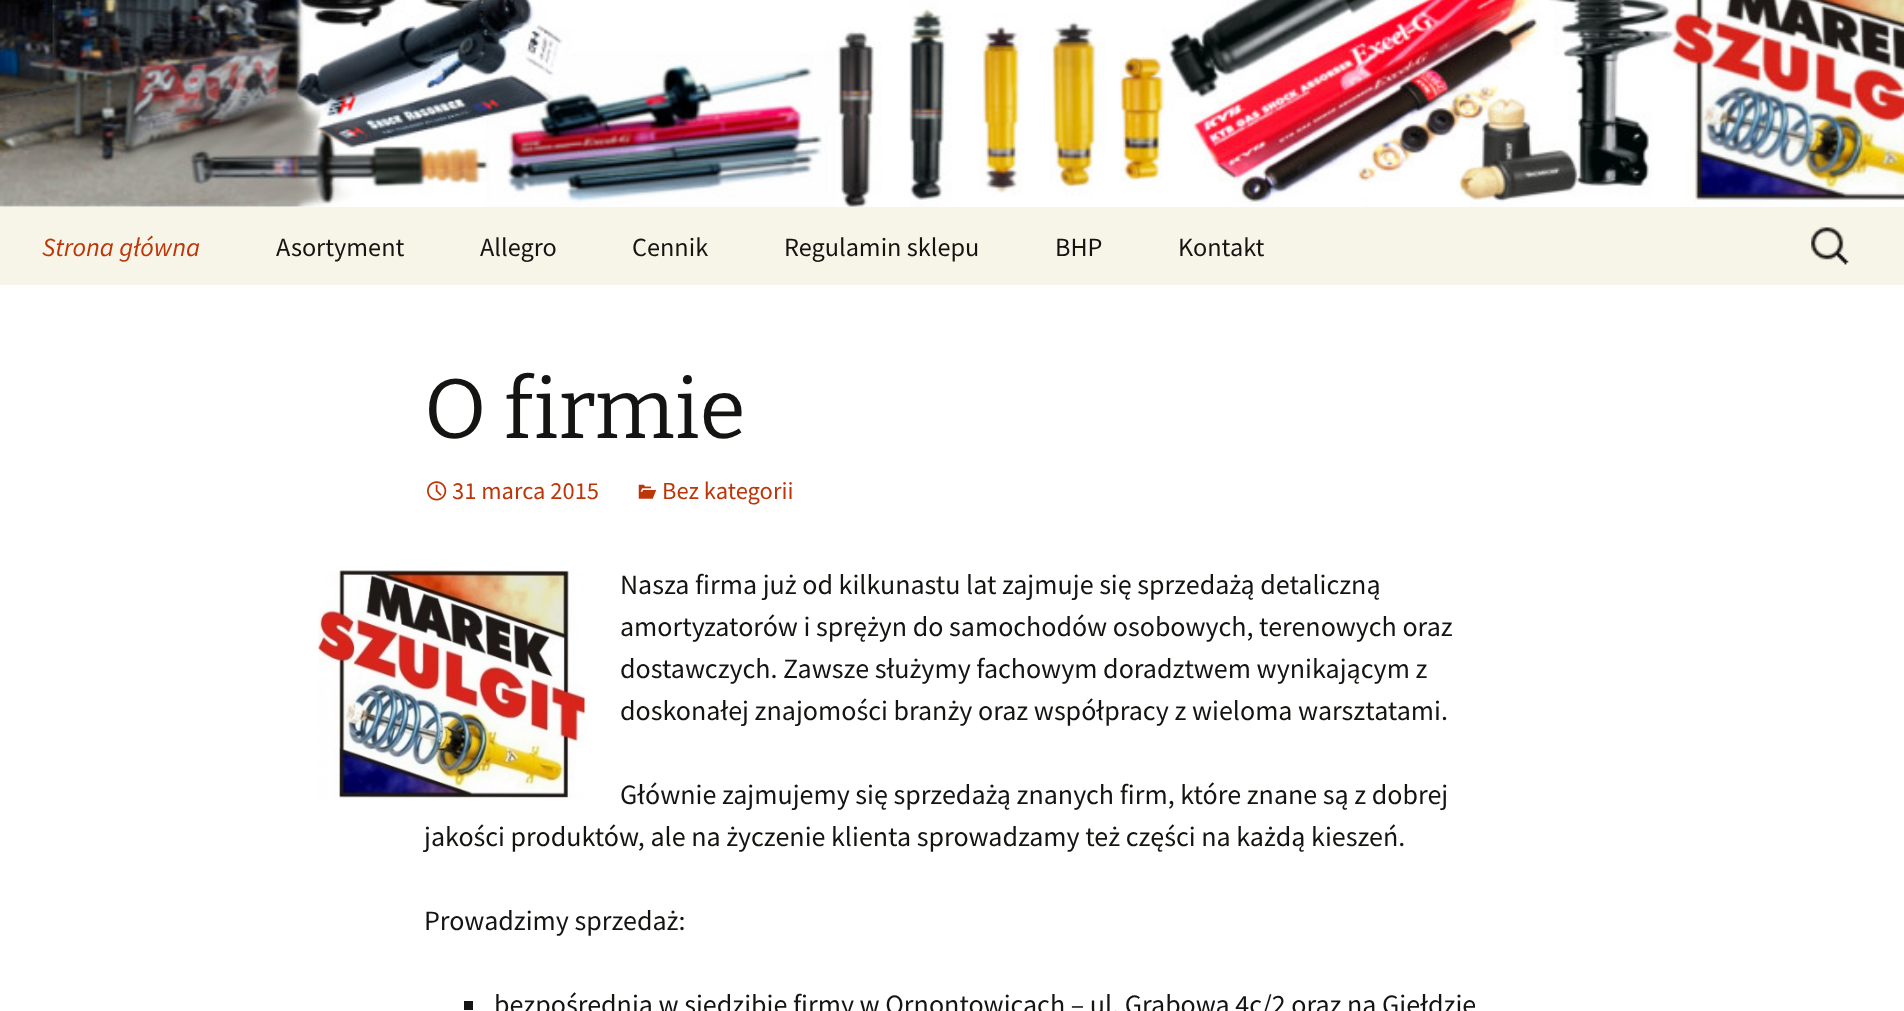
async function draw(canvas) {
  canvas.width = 1904
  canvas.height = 1011
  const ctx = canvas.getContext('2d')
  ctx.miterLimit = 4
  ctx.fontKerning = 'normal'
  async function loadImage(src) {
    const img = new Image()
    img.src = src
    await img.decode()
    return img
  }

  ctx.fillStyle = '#fff'
  ctx.fillRect(0, 0, 1904, 1011)
  ctx.drawImage(await loadImage('image0.png'), 0, 0, 1904, 207)
  ctx.fillStyle = '#f7f5e7'
  ctx.fillRect(0, 207, 1904, 78)
  ctx.font = 'italic 26.25px Source Sans Pro'
  ctx.fillStyle = '#bc360a'
  ctx.fillText('Strona główna', 42, 256)
  ctx.font = '26.25px Source Sans Pro'
  ctx.fillStyle = '#141412'
  ctx.fillText('Asortyment', 276, 256)
  ctx.fillText('Allegro', 480, 256)
  ctx.fillText('Cennik', 632, 256)
  ctx.fillText('Regulamin sklepu', 784, 256)
  ctx.fillText('BHP', 1055, 256)
  ctx.fillText('Kontakt', 1178, 256)
  ctx.drawImage(await loadImage('image1.png'), 1811, 227, 38, 38)
  ctx.font = '100 84px Bitter'
  ctx.fillText('O firmie', 424, 438)
  ctx.drawImage(await loadImage('image2.png'), 427, 481, 20, 20)
  ctx.font = '24.5px Source Sans Pro'
  ctx.fillStyle = '#bc360a'
  ctx.fillText('31 marca 2015', 452, 499)
  ctx.drawImage(await loadImage('image3.png'), 638, 484, 19, 15)
  ctx.fillText('Bez kategorii', 662, 499)
  ctx.drawImage(await loadImage('image4.png'), 318, 570, 267, 230)
  ctx.font = '28px Source Sans Pro'
  ctx.fillStyle = '#141412'
  ctx.fillText('Nasza firma już od kilkunastu lat zajmuje się sprzedażą detaliczną', 620, 594)
  ctx.fillText('amortyzatorów i sprężyn do samochodów osobowych, terenowych oraz', 620, 636)
  ctx.fillText('dostawczych. Zawsze służymy fachowym doradztwem wynikającym z', 620, 678)
  ctx.fillText('doskonałej znajomości branży oraz współpracy z wieloma warsztatami.', 620, 720)
  ctx.fillText('Głównie zajmujemy się sprzedażą znanych firm, które znane są z dobrej', 620, 804)
  ctx.fillText('jakości produktów, ale na życzenie klienta sprowadzamy też części na każdą kieszeń.', 424, 846)
  ctx.fillText('Prowadzimy sprzedaż:', 424, 930)
  ctx.fillRect(464, 1001, 9, 9)
  ctx.fillText('bezpośrednią w siedzibie firmy w Ornontowicach – ul. Grabowa 4c/2 oraz na Giełdzie', 494, 1014)
}

draw(document.querySelector('canvas'))
